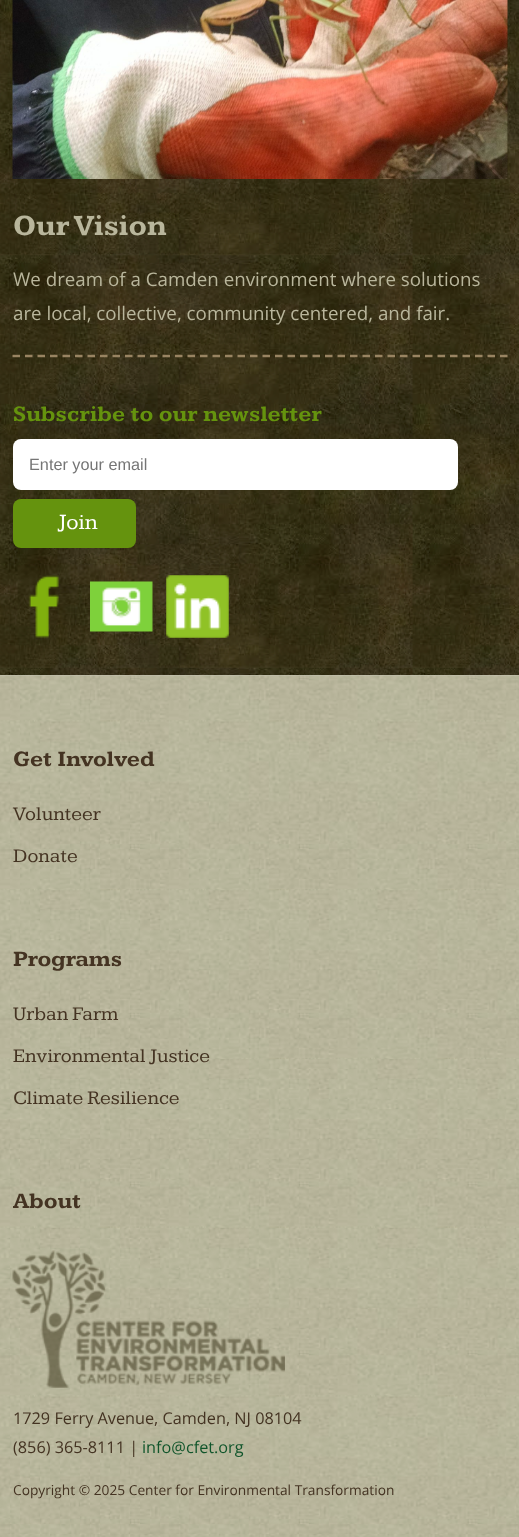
async function draw(canvas) {
  canvas.width = 519
  canvas.height = 1537
  const ctx = canvas.getContext('2d')
  ctx.miterLimit = 4
  ctx.fontKerning = 'normal'
  async function loadImage(src) {
    const img = new Image()
    img.src = src
    await img.decode()
    return img
  }

  ctx.fillStyle = '#fff'
  ctx.fillRect(0, 0, 519, 1537)
  ctx.drawImage(await loadImage('image0.png'), 0, 0, 519, 676)
  ctx.drawImage(await loadImage('image1.png'), 12, 0, 496, 179)
  ctx.beginPath()
  ctx.moveTo(12.5, 356)
  ctx.lineTo(507.5, 356)
  ctx.strokeStyle = '#998462'
  ctx.lineWidth = 2.5
  ctx.setLineDash([7.5, 5])
  ctx.stroke()
  ctx.font = 'bold 30px Kameron'
  ctx.fillStyle = '#b9b69c'
  ctx.fillText('Our Vision', 13, 235)
  ctx.font = '18.75px Open Sans'
  ctx.fillText('We dream of a Camden environment where solutions', 13, 286)
  ctx.fillText('are local, collective, community centered, and fair.', 13, 320)
  ctx.font = 'bold 22.5px Kameron'
  ctx.fillStyle = '#65930e'
  ctx.fillText('Subscribe to our newsletter', 13, 421)
  ctx.fillStyle = '#fff'
  ctx.beginPath()
  ctx.roundRect(13, 439, 445, 51, 8)
  ctx.fill()
  ctx.font = '16.25px Liberation Sans'
  ctx.fillStyle = '#757575'
  ctx.fillText('Enter your email', 29, 470)
  ctx.fillStyle = '#65930e'
  ctx.beginPath()
  ctx.roundRect(13, 499, 123, 49, 8)
  ctx.fill()
  ctx.font = '22.5px Kameron'
  ctx.fillStyle = '#fff'
  ctx.fillText('Join', 58, 529)
  ctx.drawImage(await loadImage('image2.png'), 28, 575, 31, 63)
  ctx.drawImage(await loadImage('image3.png'), 90, 581, 63, 51)
  ctx.drawImage(await loadImage('image4.png'), 166, 575, 63, 63)
  ctx.drawImage(await loadImage('image5.png'), 0, 675, 519, 862)
  ctx.font = 'bold 22.5px Kameron'
  ctx.fillStyle = '#432'
  ctx.fillText('Get Involved', 13, 766)
  ctx.font = '20px Kameron'
  ctx.fillText('Volunteer', 13, 820)
  ctx.fillText('Donate', 13, 862)
  ctx.font = 'bold 22.5px Kameron'
  ctx.fillText('Programs', 13, 966)
  ctx.font = '20px Kameron'
  ctx.fillText('Urban Farm', 13, 1020)
  ctx.fillText('Environmental Justice', 13, 1062)
  ctx.fillText('Climate Resilience', 13, 1104)
  ctx.font = 'bold 22.5px Kameron'
  ctx.fillText('About', 13, 1208)
  ctx.drawImage(await loadImage('image6.png'), 12, 1250, 273, 138)
  ctx.font = '16.25px Open Sans'
  ctx.fillText('1729 Ferry Avenue, Camden, NJ 08104', 13, 1424)
  ctx.fillText('(856) 365-8111 |', 13, 1453)
  ctx.fillStyle = '#10552b'
  ctx.fillText('info@cfet.org', 142, 1453)
  ctx.font = '13.75px Open Sans'
  ctx.fillStyle = '#432'
  ctx.fillText('Copyright © 2025 Center for Environmental Transformation', 13, 1495)
}

draw(document.querySelector('canvas'))
